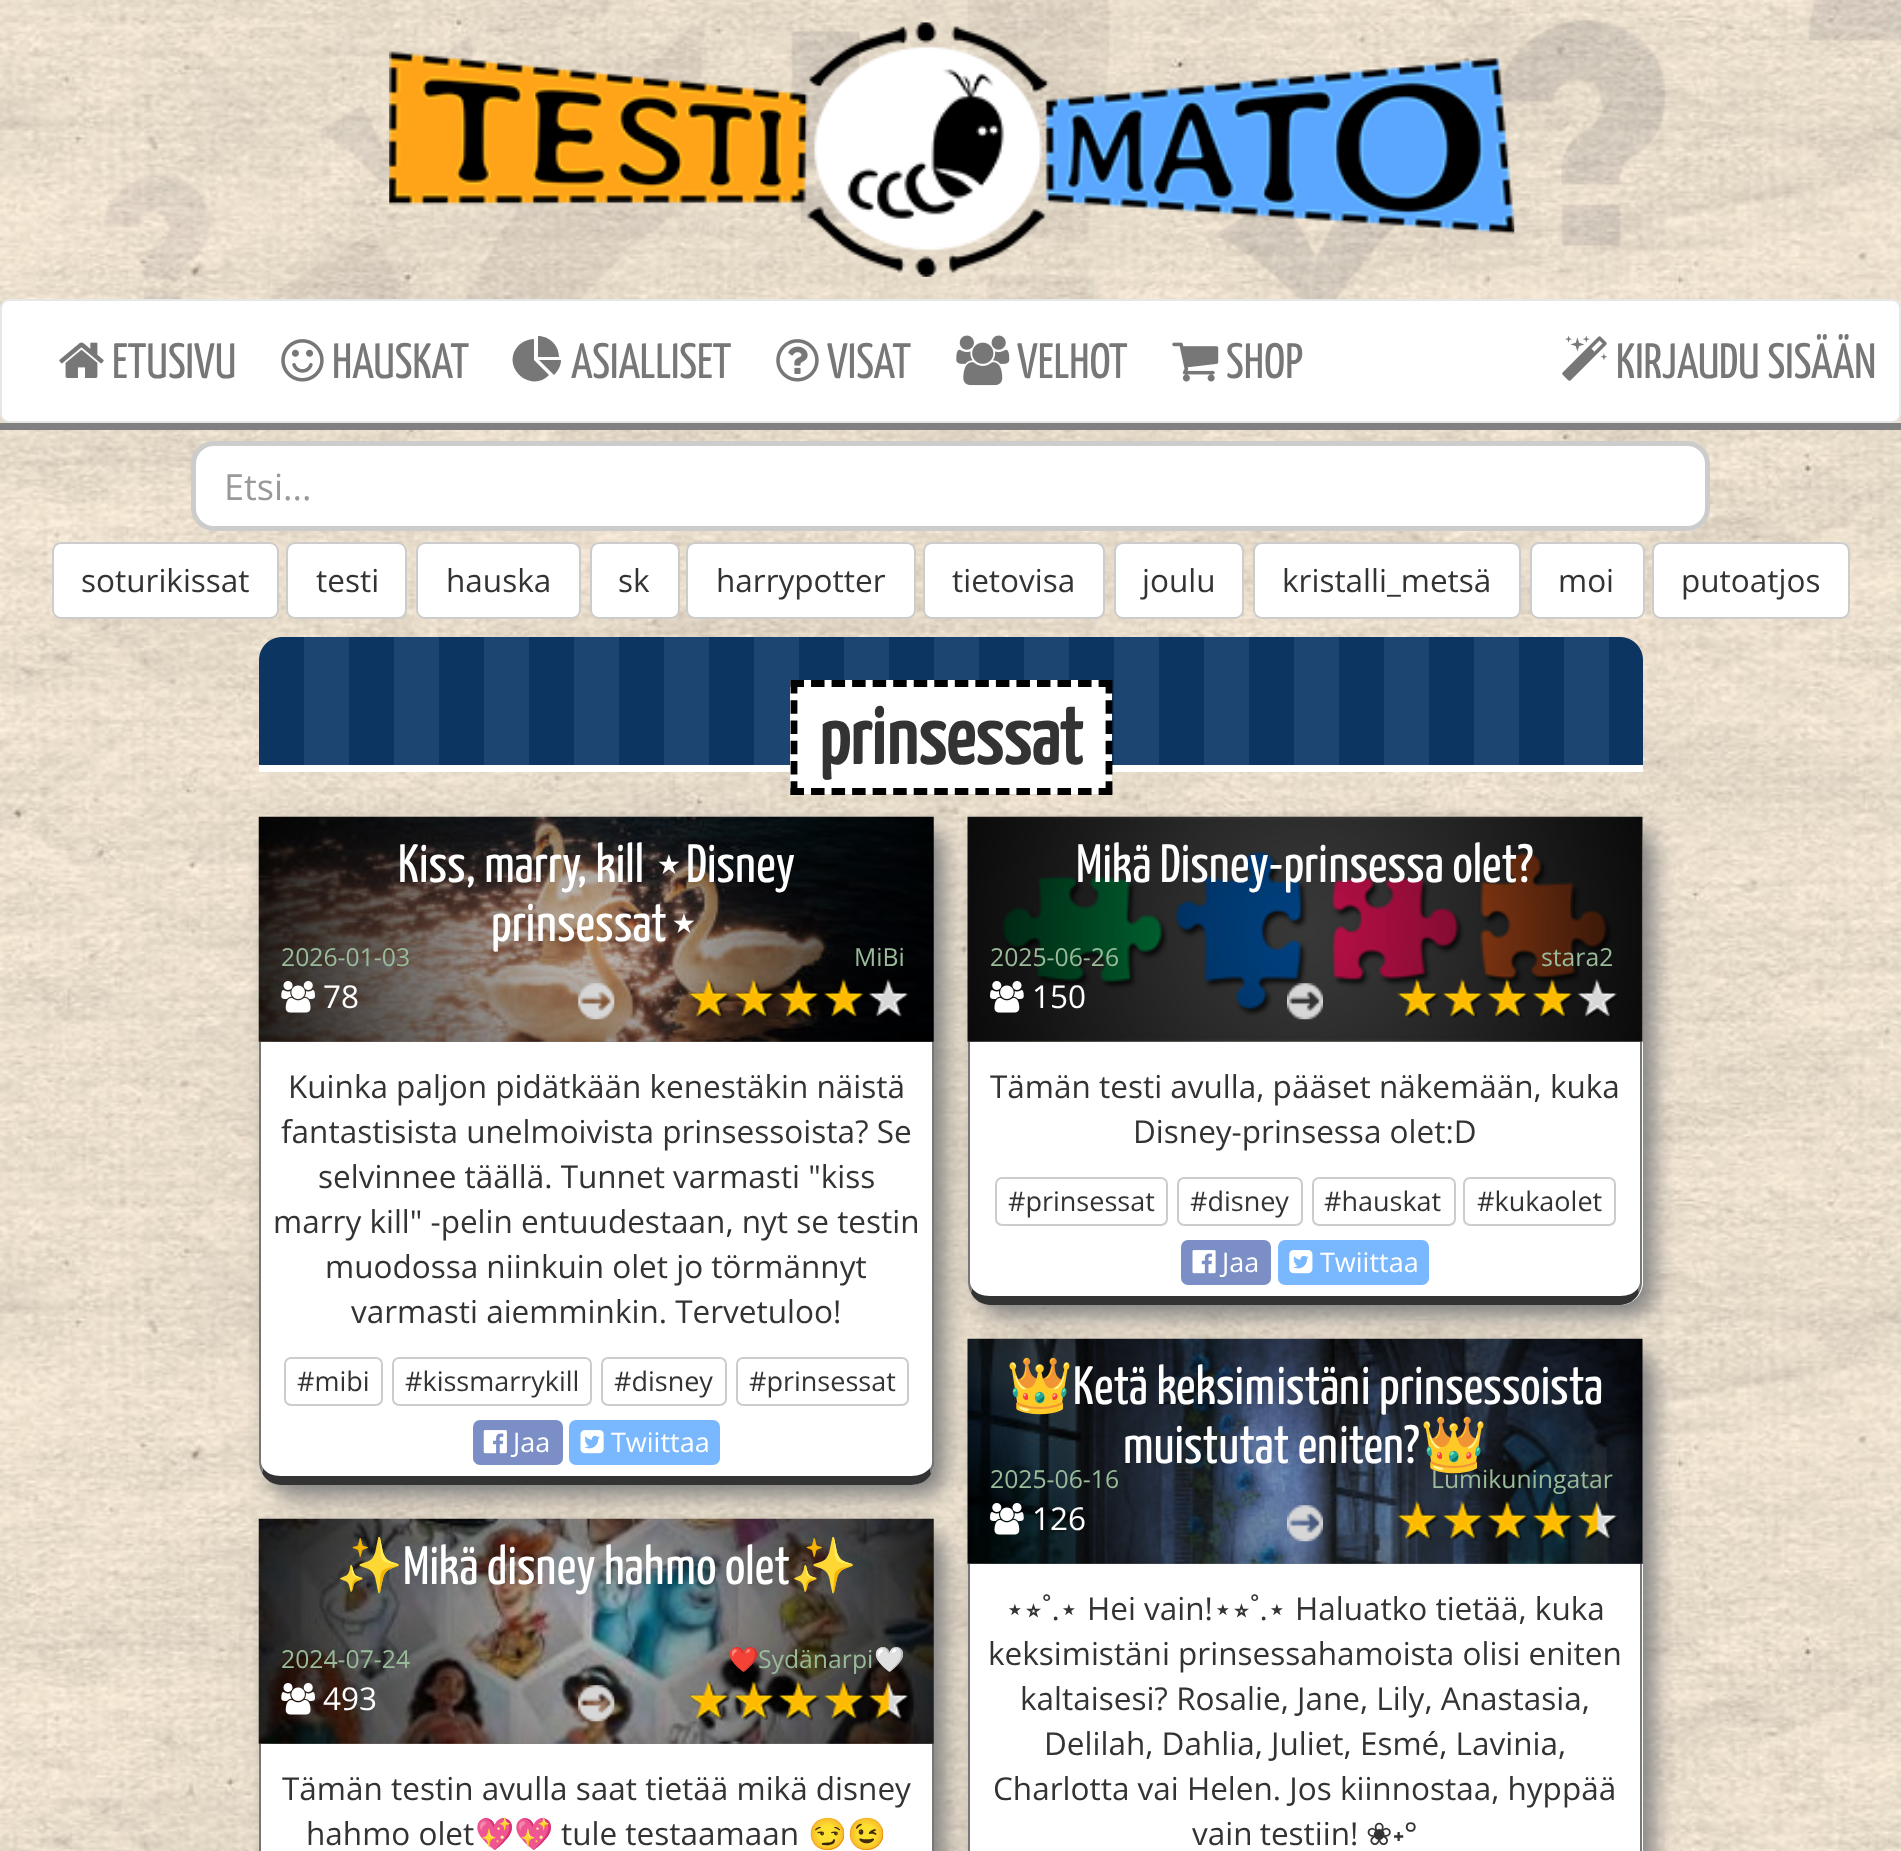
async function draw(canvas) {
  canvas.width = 1901
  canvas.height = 1851
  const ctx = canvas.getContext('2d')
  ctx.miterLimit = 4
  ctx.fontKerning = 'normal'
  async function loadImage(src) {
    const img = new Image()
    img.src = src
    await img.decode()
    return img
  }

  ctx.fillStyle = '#fff'
  ctx.fillRect(0, 0, 1901, 1851)
  ctx.drawImage(await loadImage('image0.png'), 0, 0, 1901, 1851)
  ctx.drawImage(await loadImage('image1.png'), 103, 0, 1798, 299)
  ctx.drawImage(await loadImage('image2.png'), 389, 22, 1126, 255)
  ctx.beginPath()
  ctx.roundRect(1, 300, 1899, 122, 8)
  ctx.fill()
  ctx.strokeStyle = '#e7e7e7'
  ctx.lineWidth = 2
  ctx.stroke()
  ctx.drawImage(await loadImage('image3.png'), 59, 342, 45, 36)
  ctx.font = '200 49.5px Yanone Kaffeesatz'
  ctx.fillStyle = '#777'
  ctx.fillText('ETUSIVU', 112, 378)
  ctx.drawImage(await loadImage('image4.png'), 281, 339, 43, 43)
  ctx.fillText('HAUSKAT', 332, 378)
  ctx.beginPath()
  ctx.moveTo(534, 360)
  ctx.lineTo(549, 375)
  ctx.bezierCurveTo(531, 394, 500, 367, 518, 346)
  ctx.bezierCurveTo(522, 342, 528, 339, 534, 339)
  ctx.closePath()
  ctx.moveTo(539, 360)
  ctx.lineTo(561, 360)
  ctx.bezierCurveTo(561, 366, 558, 371, 554, 375)
  ctx.closePath()
  ctx.moveTo(559, 357)
  ctx.lineTo(538, 357)
  ctx.lineTo(538, 336)
  ctx.bezierCurveTo(549, 336, 559, 345, 559, 357)
  ctx.closePath()
  ctx.fill()
  ctx.fillText('ASIALLISET', 571, 378)
  ctx.drawImage(await loadImage('image5.png'), 776, 339, 43, 43)
  ctx.fillText('VISAT', 827, 378)
  ctx.drawImage(await loadImage('image6.png'), 956, 335, 54, 51)
  ctx.fillText('VELHOT', 1017, 378)
  ctx.drawImage(await loadImage('image7.png'), 1172, 342, 47, 40)
  ctx.fillText('SHOP', 1226, 378)
  ctx.drawImage(await loadImage('image8.png'), 1562, 335, 46, 46)
  ctx.fillText('KIRJAUDU SISÄÄN', 1616, 378)
  ctx.fillStyle = '#808080'
  ctx.fillRect(0, 423, 1901, 7)
  ctx.fillStyle = '#fff'
  ctx.beginPath()
  ctx.roundRect(193.5, 443.5, 1514, 85, 20.5)
  ctx.fill()
  ctx.strokeStyle = '#ccc'
  ctx.lineWidth = 5
  ctx.stroke()
  ctx.font = '36px Open Sans'
  ctx.fillStyle = '#999'
  ctx.fillText('Etsi...', 224, 500)
  ctx.fillStyle = '#fff'
  ctx.beginPath()
  ctx.roundRect(53, 543, 225, 75, 8)
  ctx.fill()
  ctx.lineWidth = 2
  ctx.stroke()
  ctx.font = '31.5px Open Sans'
  ctx.fillStyle = '#333'
  ctx.fillText('soturikissat', 81, 592)
  ctx.fillStyle = '#fff'
  ctx.beginPath()
  ctx.roundRect(287, 543, 119, 75, 8)
  ctx.fill()
  ctx.stroke()
  ctx.fillStyle = '#333'
  ctx.fillText('testi', 316, 592)
  ctx.fillStyle = '#fff'
  ctx.beginPath()
  ctx.roundRect(417, 543, 163, 75, 8)
  ctx.fill()
  ctx.stroke()
  ctx.fillStyle = '#333'
  ctx.fillText('hauska', 446, 592)
  ctx.fillStyle = '#fff'
  ctx.beginPath()
  ctx.roundRect(591, 543, 88, 75, 8)
  ctx.fill()
  ctx.stroke()
  ctx.fillStyle = '#333'
  ctx.fillText('sk', 618, 592)
  ctx.fillStyle = '#fff'
  ctx.beginPath()
  ctx.roundRect(687, 543, 228, 75, 8)
  ctx.fill()
  ctx.stroke()
  ctx.fillStyle = '#333'
  ctx.fillText('harrypotter', 716, 592)
  ctx.fillStyle = '#fff'
  ctx.beginPath()
  ctx.roundRect(924, 543, 180, 75, 8)
  ctx.fill()
  ctx.stroke()
  ctx.fillStyle = '#333'
  ctx.fillText('tietovisa', 952, 592)
  ctx.fillStyle = '#fff'
  ctx.beginPath()
  ctx.roundRect(1115, 543, 128, 75, 8)
  ctx.fill()
  ctx.stroke()
  ctx.fillStyle = '#333'
  ctx.fillText('joulu', 1142, 592)
  ctx.fillStyle = '#fff'
  ctx.beginPath()
  ctx.roundRect(1254, 543, 266, 75, 8)
  ctx.fill()
  ctx.stroke()
  ctx.fillStyle = '#333'
  ctx.fillText('kristalli_metsä', 1282, 592)
  ctx.fillStyle = '#fff'
  ctx.beginPath()
  ctx.roundRect(1531, 543, 113, 75, 8)
  ctx.fill()
  ctx.stroke()
  ctx.fillStyle = '#333'
  ctx.fillText('moi', 1558, 592)
  ctx.fillStyle = '#fff'
  ctx.beginPath()
  ctx.roundRect(1653, 543, 196, 75, 8)
  ctx.fill()
  ctx.stroke()
  ctx.fillStyle = '#333'
  ctx.fillText('putoatjos', 1681, 592)
  ctx.drawImage(await loadImage('image9.png'), 259, 637, 1384, 128)
  ctx.fillStyle = '#fff'
  ctx.fillRect(259, 765, 1384, 7)
  ctx.fillRect(790, 680, 322, 114)
  ctx.beginPath()
  ctx.moveTo(790.5, 683.5)
  ctx.lineTo(1112.5, 683.5)
  ctx.strokeStyle = '#000'
  ctx.lineWidth = 6.8
  ctx.setLineDash([13.5, 7.04])
  ctx.stroke()
  ctx.save()
  ctx.beginPath()
  ctx.moveTo(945, 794)
  ctx.lineTo(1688, 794)
  ctx.lineTo(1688, 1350)
  ctx.lineTo(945, 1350)
  ctx.closePath()
  ctx.moveTo(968, 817)
  ctx.lineTo(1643, 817)
  ctx.lineTo(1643, 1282)
  ctx.bezierCurveTo(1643, 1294.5, 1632.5, 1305, 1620, 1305)
  ctx.lineTo(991, 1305)
  ctx.bezierCurveTo(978.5, 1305, 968, 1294.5, 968, 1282)
  ctx.closePath()
  ctx.clip('evenodd')
  ctx.fillStyle = '#808080'
  ctx.filter = 'blur(11px)'
  ctx.beginPath()
  ctx.roundRect(979, 828, 675, 488, 23)
  ctx.fill()
  ctx.filter = 'none'
  ctx.restore()
  ctx.beginPath()
  ctx.moveTo(1109, 680)
  ctx.lineTo(1109, 795)
  ctx.setLineDash([13.5, 6.75])
  ctx.stroke()
  ctx.fillStyle = '#808080'
  ctx.filter = 'blur(11px)'
  ctx.beginPath()
  ctx.roundRect(270, 828, 675, 668, 23)
  ctx.fill()
  ctx.filter = 'none'
  ctx.beginPath()
  ctx.moveTo(790.5, 791.5)
  ctx.lineTo(1112.5, 791.5)
  ctx.setLineDash([13.5, 7.04])
  ctx.stroke()
  ctx.beginPath()
  ctx.moveTo(794, 680)
  ctx.lineTo(794, 795)
  ctx.setLineDash([13.5, 6.75])
  ctx.stroke()
  ctx.font = 'bold 81px Yanone Kaffeesatz'
  ctx.fillStyle = '#333'
  ctx.fillText('prinsessat', 819, 764)
  ctx.drawImage(await loadImage('image10.png'), 258, 816, 676, 226)
  ctx.font = '200 54px Yanone Kaffeesatz'
  ctx.fillStyle = '#fff'
  ctx.fillText('Kiss, marry, kill', 398, 882)
  ctx.font = '54px DejaVu Sans'
  ctx.fillText('⋆', 652, 882)
  ctx.font = '200 54px Yanone Kaffeesatz'
  ctx.fillText('Disney', 686, 882)
  ctx.fillText('prinsessat', 491, 941)
  ctx.font = '54px DejaVu Sans'
  ctx.fillText('⋆', 667, 941)
  ctx.font = '24.75px Open Sans'
  ctx.fillStyle = '#9b9'
  ctx.fillText('2026-01-03', 281, 966)
  ctx.fillText('MiBi', 854, 966)
  ctx.drawImage(await loadImage('image11.png'), 281, 981, 34, 32)
  ctx.font = '31.5px Open Sans'
  ctx.fillStyle = '#fff'
  ctx.fillText('78', 323, 1008)
  ctx.drawImage(await loadImage('image12.png'), 578, 983, 37, 37)
  ctx.drawImage(await loadImage('image13.png'), 688, 978, 221, 41)
  ctx.beginPath()
  ctx.roundRect(259, 1042, 675, 443, [0, 0, 23, 23])
  ctx.fill()
  ctx.fillStyle = '#777'
  ctx.beginPath()
  ctx.moveTo(931, 1474)
  ctx.lineTo(930, 1468)
  ctx.bezierCurveTo(931, 1467, 932, 1464, 932, 1462)
  ctx.lineTo(932, 1042)
  ctx.lineTo(934, 1042)
  ctx.lineTo(934, 1466)
  ctx.bezierCurveTo(933, 1468, 932, 1471, 931, 1474)
  ctx.closePath()
  ctx.fill()
  ctx.fillStyle = '#333'
  ctx.beginPath()
  ctx.moveTo(281, 1485)
  ctx.lineTo(911, 1485)
  ctx.bezierCurveTo(920, 1485, 927, 1481, 931, 1474)
  ctx.lineTo(930, 1468)
  ctx.bezierCurveTo(926, 1473, 919, 1476, 911, 1476)
  ctx.lineTo(281, 1476)
  ctx.bezierCurveTo(273, 1476, 266, 1473, 263, 1468)
  ctx.lineTo(262, 1473)
  ctx.bezierCurveTo(265, 1480, 273, 1485, 281, 1485)
  ctx.closePath()
  ctx.fill()
  ctx.fillStyle = '#777'
  ctx.beginPath()
  ctx.moveTo(259, 1042)
  ctx.lineTo(261, 1042)
  ctx.lineTo(261, 1462)
  ctx.bezierCurveTo(261, 1464, 262, 1466, 263, 1468)
  ctx.lineTo(262, 1473)
  ctx.bezierCurveTo(260, 1470, 259, 1466, 259, 1462)
  ctx.closePath()
  ctx.fill()
  ctx.fillStyle = '#333'
  ctx.fillText('Kuinka paljon pidätkään kenestäkin näistä', 288, 1098)
  ctx.fillText('fantastisista unelmoivista prinsessoista? Se', 281, 1143)
  ctx.fillText('selvinnee täällä. Tunnet varmasti "kiss', 318, 1188)
  ctx.fillText('marry kill" -pelin entuudestaan, nyt se testin', 273, 1233)
  ctx.fillText('muodossa niinkuin olet jo törmännyt', 325, 1278)
  ctx.fillText('varmasti aiemminkin. Tervetuloo!', 351, 1323)
  ctx.beginPath()
  ctx.roundRect(285, 1358, 97, 47, 6)
  ctx.strokeStyle = '#ccc'
  ctx.lineWidth = 2
  ctx.setLineDash([])
  ctx.stroke()
  ctx.font = '27px Open Sans'
  ctx.fillText('#mibi', 297, 1391)
  ctx.beginPath()
  ctx.roundRect(393, 1358, 198, 47, 6)
  ctx.stroke()
  ctx.fillText('#kissmarrykill', 405, 1391)
  ctx.beginPath()
  ctx.roundRect(602, 1358, 124, 47, 6)
  ctx.stroke()
  ctx.fillText('#disney', 614, 1391)
  ctx.beginPath()
  ctx.roundRect(737, 1358, 171, 47, 6)
  ctx.stroke()
  ctx.fillText('#prinsessat', 749, 1391)
  ctx.fillStyle = '#7b8fc6'
  ctx.beginPath()
  ctx.roundRect(473, 1420, 90, 45, 7)
  ctx.fill()
  ctx.drawImage(await loadImage('image14.png'), 483, 1430, 24, 24)
  ctx.fillStyle = '#fff'
  ctx.fillText('Jaa', 513, 1452)
  ctx.fillStyle = '#79b8ff'
  ctx.beginPath()
  ctx.roundRect(569, 1420, 151, 45, 7)
  ctx.fill()
  ctx.drawImage(await loadImage('image15.png'), 580, 1430, 24, 24)
  ctx.fillStyle = '#fff'
  ctx.fillText('Twiittaa', 611, 1452)
  ctx.drawImage(await loadImage('image16.png'), 967, 816, 676, 226)
  ctx.font = '200 54px Yanone Kaffeesatz'
  ctx.fillText('Mikä Disney-prinsessa olet?', 1076, 882)
  ctx.font = '24.75px Open Sans'
  ctx.fillStyle = '#9b9'
  ctx.fillText('2025-06-26', 990, 966)
  ctx.fillText('stara2', 1541, 966)
  ctx.drawImage(await loadImage('image17.png'), 990, 981, 34, 32)
  ctx.font = '31.5px Open Sans'
  ctx.fillStyle = '#fff'
  ctx.fillText('150', 1032, 1008)
  ctx.drawImage(await loadImage('image18.png'), 1287, 983, 36, 37)
  ctx.drawImage(await loadImage('image19.png'), 1396, 978, 222, 40)
  ctx.beginPath()
  ctx.roundRect(968, 1042, 675, 263, [0, 0, 23, 23])
  ctx.fill()
  ctx.fillStyle = '#777'
  ctx.beginPath()
  ctx.moveTo(1639, 1293)
  ctx.bezierCurveTo(1641, 1290, 1642, 1286, 1642, 1282)
  ctx.lineTo(1642, 1042)
  ctx.lineTo(1640, 1042)
  ctx.lineTo(1640, 1282)
  ctx.bezierCurveTo(1640, 1284, 1639, 1286, 1638, 1288)
  ctx.closePath()
  ctx.fill()
  ctx.fillStyle = '#333'
  ctx.beginPath()
  ctx.moveTo(990, 1305)
  ctx.lineTo(1620, 1305)
  ctx.bezierCurveTo(1628, 1305, 1636, 1300, 1639, 1293)
  ctx.lineTo(1638, 1288)
  ctx.bezierCurveTo(1635, 1293, 1628, 1296, 1620, 1296)
  ctx.lineTo(990, 1296)
  ctx.bezierCurveTo(982, 1296, 975, 1293, 972, 1288)
  ctx.lineTo(971, 1293)
  ctx.bezierCurveTo(974, 1300, 982, 1305, 990, 1305)
  ctx.closePath()
  ctx.fill()
  ctx.fillStyle = '#777'
  ctx.beginPath()
  ctx.moveTo(968, 1042)
  ctx.lineTo(970, 1042)
  ctx.lineTo(970, 1282)
  ctx.bezierCurveTo(970, 1284, 971, 1286, 972, 1288)
  ctx.lineTo(971, 1293)
  ctx.bezierCurveTo(969, 1290, 968, 1286, 968, 1282)
  ctx.closePath()
  ctx.fill()
  ctx.fillStyle = '#333'
  ctx.fillText('Tämän testi avulla, pääset näkemään, kuka', 990, 1098)
  ctx.fillText('Disney-prinsessa olet:D', 1133, 1143)
  ctx.beginPath()
  ctx.roundRect(996, 1178, 171, 47, 6)
  ctx.stroke()
  ctx.font = '27px Open Sans'
  ctx.fillText('#prinsessat', 1008, 1211)
  ctx.beginPath()
  ctx.roundRect(1178, 1178, 124, 47, 6)
  ctx.stroke()
  ctx.fillText('#disney', 1190, 1211)
  ctx.beginPath()
  ctx.roundRect(1313, 1178, 142, 47, 6)
  ctx.stroke()
  ctx.fillText('#hauskat', 1324, 1211)
  ctx.beginPath()
  ctx.roundRect(1464, 1178, 151, 47, 6)
  ctx.stroke()
  ctx.fillText('#kukaolet', 1477, 1211)
  ctx.fillStyle = '#7b8fc6'
  ctx.beginPath()
  ctx.roundRect(1181, 1240, 90, 45, 7)
  ctx.fill()
  ctx.drawImage(await loadImage('image20.png'), 1192, 1250, 24, 24)
  ctx.fillStyle = '#fff'
  ctx.fillText('Jaa', 1222, 1272)
  ctx.fillStyle = '#79b8ff'
  ctx.beginPath()
  ctx.roundRect(1278, 1240, 151, 45, 7)
  ctx.fill()
  ctx.drawImage(await loadImage('image21.png'), 1289, 1250, 24, 24)
  ctx.fillStyle = '#fff'
  ctx.fillText('Twiittaa', 1320, 1272)
  ctx.fillStyle = '#808080'
  ctx.filter = 'blur(11px)'
  ctx.beginPath()
  ctx.roundRect(979, 1350, 675, 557, 23)
  ctx.fill()
  ctx.filter = 'none'
  ctx.drawImage(await loadImage('image26.png'), 967, 1338, 676, 226)
  ctx.fillStyle = '#fff'
  ctx.fillRect(970, 1564, 673, 287)
  ctx.fillStyle = '#777'
  ctx.beginPath()
  ctx.moveTo(968, 1564)
  ctx.lineTo(970, 1564)
  ctx.lineTo(970, 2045)
  ctx.bezierCurveTo(970, 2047, 971, 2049, 972, 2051)
  ctx.lineTo(971, 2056)
  ctx.bezierCurveTo(969, 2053, 968, 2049, 968, 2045)
  ctx.closePath()
  ctx.fill()
  ctx.fillStyle = '#808080'
  ctx.filter = 'blur(11px)'
  ctx.beginPath()
  ctx.roundRect(270, 1530, 675, 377, 23)
  ctx.fill()
  ctx.filter = 'none'
  ctx.drawImage(await loadImage('image22.png'), 258, 1518, 676, 226)
  ctx.font = '54px Noto Color Emoji'
  ctx.fillStyle = '#fff'
  ctx.fillText('✨', 336, 1584)
  ctx.font = '200 54px Yanone Kaffeesatz'
  ctx.fillText('Mikä disney hahmo olet', 403, 1584)
  ctx.font = '54px Noto Color Emoji'
  ctx.fillText('✨', 790, 1584)
  ctx.font = '24.75px Open Sans'
  ctx.fillStyle = '#9b9'
  ctx.fillText('2024-07-24', 281, 1668)
  ctx.font = '24.75px Noto Color Emoji'
  ctx.fillText('❤️', 728, 1668)
  ctx.font = '24.75px Open Sans'
  ctx.fillText('Sydänarpi', 758, 1668)
  ctx.font = '24.75px Noto Color Emoji'
  ctx.fillText('🤍', 874, 1668)
  ctx.drawImage(await loadImage('image23.png'), 281, 1683, 34, 32)
  ctx.font = '31.5px Open Sans'
  ctx.fillStyle = '#fff'
  ctx.fillText('493', 323, 1710)
  ctx.drawImage(await loadImage('image24.png'), 578, 1685, 37, 37)
  ctx.drawImage(await loadImage('image25.png'), 688, 1680, 221, 41)
  ctx.fillRect(261, 1744, 671, 107)
  ctx.fillStyle = '#777'
  ctx.beginPath()
  ctx.moveTo(931, 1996)
  ctx.lineTo(930, 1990)
  ctx.bezierCurveTo(931, 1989, 932, 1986, 932, 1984)
  ctx.lineTo(932, 1744)
  ctx.lineTo(934, 1744)
  ctx.lineTo(934, 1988)
  ctx.bezierCurveTo(933, 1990, 932, 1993, 931, 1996)
  ctx.closePath()
  ctx.fill()
  ctx.beginPath()
  ctx.moveTo(259, 1744)
  ctx.lineTo(261, 1744)
  ctx.lineTo(261, 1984)
  ctx.bezierCurveTo(261, 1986, 262, 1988, 263, 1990)
  ctx.lineTo(262, 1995)
  ctx.bezierCurveTo(260, 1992, 259, 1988, 259, 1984)
  ctx.closePath()
  ctx.fill()
  ctx.fillStyle = '#333'
  ctx.fillText('Tämän testin avulla saat tietää mikä disney', 282, 1800)
  ctx.fillText('hahmo olet', 306, 1845)
  ctx.font = '31.5px Noto Color Emoji'
  ctx.fillText('💖💖', 475, 1845)
  ctx.font = '31.5px Open Sans'
  ctx.fillText('tule testaamaan', 561, 1845)
  ctx.font = '31.5px Noto Color Emoji'
  ctx.fillText('😏😉', 808, 1845)
  ctx.font = '54px Noto Color Emoji'
  ctx.fillStyle = '#fff'
  ctx.fillText('👑', 1006, 1404)
  ctx.font = '200 54px Yanone Kaffeesatz'
  ctx.fillText('Ketä keksimistäni prinsessoista', 1073, 1404)
  ctx.fillText('muistutat eniten?', 1123, 1463)
  ctx.font = '54px Noto Color Emoji'
  ctx.fillText('👑', 1420, 1463)
  ctx.font = '24.75px Open Sans'
  ctx.fillStyle = '#9b9'
  ctx.fillText('2025-06-16', 990, 1488)
  ctx.fillText('Lumikuningatar', 1431, 1488)
  ctx.drawImage(await loadImage('image27.png'), 990, 1503, 34, 32)
  ctx.font = '31.5px Open Sans'
  ctx.fillStyle = '#fff'
  ctx.fillText('126', 1032, 1530)
  ctx.drawImage(await loadImage('image28.png'), 1287, 1505, 36, 37)
  ctx.drawImage(await loadImage('image29.png'), 1396, 1500, 223, 41)
  ctx.fillStyle = '#777'
  ctx.beginPath()
  ctx.moveTo(1639, 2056)
  ctx.bezierCurveTo(1641, 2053, 1642, 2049, 1642, 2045)
  ctx.lineTo(1642, 1564)
  ctx.lineTo(1640, 1564)
  ctx.lineTo(1640, 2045)
  ctx.bezierCurveTo(1640, 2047, 1639, 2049, 1638, 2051)
  ctx.closePath()
  ctx.fill()
  ctx.font = '31.5px DejaVu Sans'
  ctx.fillStyle = '#333'
  ctx.fillText('⋆', 1005, 1620)
  ctx.font = '31.5px FreeSans'
  ctx.fillText('⭒', 1025, 1620)
  ctx.font = '31.5px Open Sans'
  ctx.fillText('˚.', 1042, 1620)
  ctx.font = '31.5px DejaVu Sans'
  ctx.fillText('⋆', 1059, 1620)
  ctx.font = '31.5px Open Sans'
  ctx.fillText('Hei vain!', 1087, 1620)
  ctx.font = '31.5px DejaVu Sans'
  ctx.fillText('⋆', 1213, 1620)
  ctx.font = '31.5px FreeSans'
  ctx.fillText('⭒', 1233, 1620)
  ctx.font = '31.5px Open Sans'
  ctx.fillText('˚.', 1250, 1620)
  ctx.font = '31.5px DejaVu Sans'
  ctx.fillText('⋆', 1267, 1620)
  ctx.font = '31.5px Open Sans'
  ctx.fillText('Haluatko tietää, kuka', 1295, 1620)
  ctx.fillText('keksimistäni prinsessahamoista olisi eniten', 988, 1665)
  ctx.fillText('kaltaisesi? Rosalie, Jane, Lily, Anastasia,', 1020, 1710)
  ctx.fillText('Delilah, Dahlia, Juliet, Esmé, Lavinia,', 1044, 1755)
  ctx.fillText('Charlotta vai Helen. Jos kiinnostaa, hyppää', 993, 1800)
  ctx.wordSpacing = '-1px'
  ctx.fillText('vain testiin!', 1192, 1845)
  ctx.wordSpacing = '0px'
  ctx.font = '31.5px DejaVu Sans'
  ctx.fillText('❀˖', 1366, 1845)
  ctx.font = '31.5px Open Sans'
  ctx.fillText('°', 1404, 1845)
}

draw(document.querySelector('canvas'))
